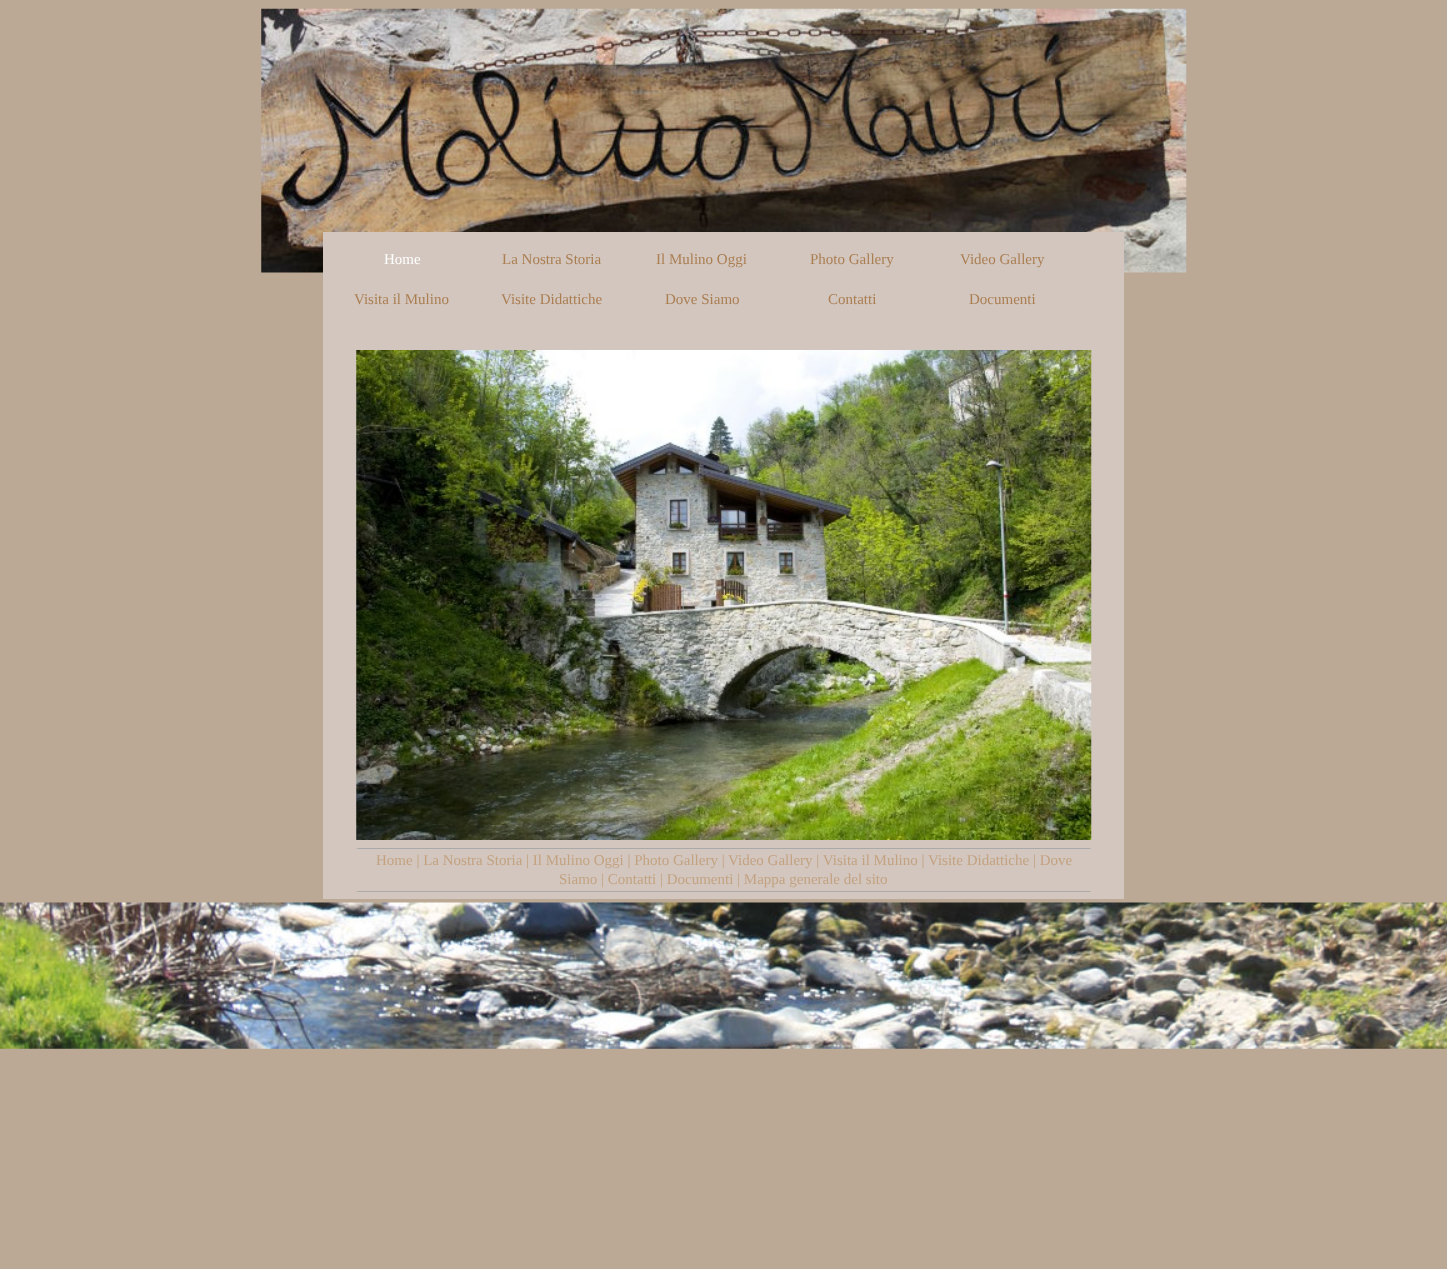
async function draw(canvas) {
  canvas.width = 1447
  canvas.height = 1269
  const ctx = canvas.getContext('2d')
  ctx.miterLimit = 4
  ctx.fontKerning = 'normal'
  async function loadImage(src) {
    const img = new Image()
    img.src = src
    await img.decode()
    return img
  }

  ctx.fillStyle = '#bba995'
  ctx.fillRect(0, 0, 1447, 1269)
  ctx.drawImage(await loadImage('image0.png'), 261, 8, 926, 265)
  ctx.fillStyle = '#d2c6be'
  ctx.fillRect(323, 232, 801, 667)
  ctx.font = '15px Liberation Serif'
  ctx.fillStyle = '#fff'
  ctx.fillText('Home', 384, 264)
  ctx.fillStyle = '#ab7e52'
  ctx.fillText('La Nostra Storia', 502, 264)
  ctx.fillText('Il Mulino Oggi', 656, 264)
  ctx.fillText('Photo Gallery', 810, 264)
  ctx.fillText('Video Gallery', 960, 264)
  ctx.fillText('Visita il Mulino', 354, 304)
  ctx.fillText('Visite Didattiche', 501, 304)
  ctx.fillText('Dove Siamo', 665, 304)
  ctx.fillText('Contatti', 828, 304)
  ctx.fillText('Documenti', 969, 304)
  ctx.drawImage(await loadImage('image1.png'), 356, 350, 736, 490)
  ctx.fillStyle = '#a9a9a9'
  ctx.beginPath()
  ctx.moveTo(356, 848)
  ctx.lineTo(1091, 848)
  ctx.lineTo(1090, 849)
  ctx.lineTo(358, 849)
  ctx.closePath()
  ctx.fill()
  ctx.beginPath()
  ctx.moveTo(1091, 892)
  ctx.lineTo(356, 892)
  ctx.lineTo(358, 891)
  ctx.lineTo(1090, 891)
  ctx.closePath()
  ctx.fill()
  ctx.fillStyle = '#c3a281'
  ctx.fillText('Home | La Nostra Storia | Il Mulino Oggi | Photo Gallery | Video Gallery | Visita il Mulino | Visite Didattiche | Dove', 376, 865)
  ctx.fillText('Siamo | Contatti | Documenti | Mappa generale del sito', 559, 884)
  ctx.drawImage(await loadImage('image2.png'), 0, 902, 1447, 147)
}

draw(document.querySelector('canvas'))
